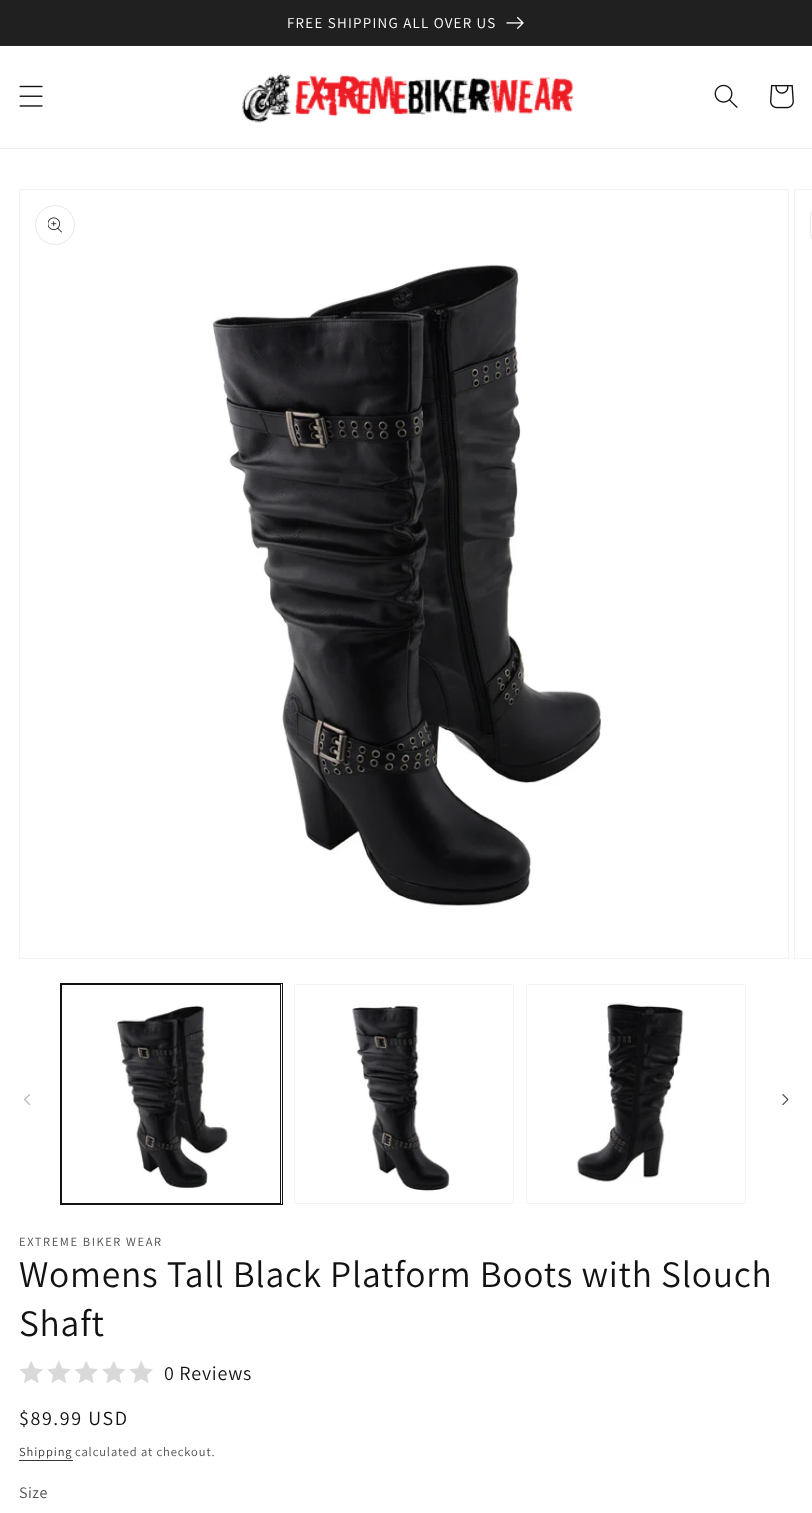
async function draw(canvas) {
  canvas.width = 812
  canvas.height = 1513
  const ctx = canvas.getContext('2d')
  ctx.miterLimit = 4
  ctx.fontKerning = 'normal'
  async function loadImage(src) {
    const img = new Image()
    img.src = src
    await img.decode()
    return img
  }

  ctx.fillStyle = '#fff'
  ctx.fillRect(0, 0, 812, 1513)
  ctx.fillStyle = '#252525'
  ctx.fillRect(0, 45, 812, 1)
  ctx.fillStyle = '#202020'
  ctx.fillRect(0, 0, 812, 45)
  ctx.letterSpacing = '1.25px'
  ctx.font = '15px Assistant'
  ctx.fillStyle = '#fff'
  ctx.fillText('FREE SHIPPING ALL OVER US', 287, 28)
  ctx.drawImage(await loadImage('image0.png'), 506, 16, 18, 13)
  ctx.fillStyle = '#ececec'
  ctx.fillRect(0, 148, 812, 1)
  ctx.drawImage(await loadImage('image1.png'), 19, 85, 24, 22)
  ctx.drawImage(await loadImage('image2.png'), 242, 73, 332, 50)
  ctx.drawImage(await loadImage('image3.png'), 714, 84, 24, 24)
  ctx.drawImage(await loadImage('image4.png'), 770, 85, 24, 24)
  ctx.strokeStyle = '#f3f3f3'
  ctx.strokeRect(19.5, 189.5, 769, 769)
  ctx.beginPath()
  ctx.arc(55, 225, 19.5, 0, 2 * Math.PI)
  ctx.strokeStyle = '#e7e7e7'
  ctx.stroke()
  ctx.drawImage(await loadImage('image5.png'), 48, 217, 14, 16)
  ctx.drawImage(await loadImage('image6.png'), 210, 264, 392, 642)
  ctx.strokeStyle = '#f3f3f3'
  ctx.strokeRect(794.5, 189.5, 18, 769)
  ctx.beginPath()
  ctx.roundRect(810.5, 205.5, 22, 39, 19.5)
  ctx.strokeStyle = '#e7e7e7'
  ctx.stroke()
  ctx.drawImage(await loadImage('image7.png'), 24, 1094, 7, 12)
  ctx.strokeStyle = '#121212'
  ctx.strokeRect(60.5, 983.5, 222, 221)
  ctx.strokeRect(61.5, 984.5, 219, 219)
  ctx.drawImage(await loadImage('image8.png'), 116, 1005, 114, 185)
  ctx.strokeStyle = '#f3f3f3'
  ctx.strokeRect(294.5, 984.5, 219, 219)
  ctx.drawImage(await loadImage('image9.png'), 352, 1005, 98, 188)
  ctx.strokeRect(526.5, 984.5, 219, 219)
  ctx.drawImage(await loadImage('image10.png'), 576, 1002, 108, 180)
  ctx.drawImage(await loadImage('image11.png'), 782, 1094, 7, 12)
  ctx.letterSpacing = '1.6px'
  ctx.font = '12.5px Assistant'
  ctx.fillStyle = '#4d4d4d'
  ctx.fillText('EXTREME BIKER WEAR', 19, 1246)
  ctx.letterSpacing = '0.75px'
  ctx.font = '37.5px Assistant'
  ctx.fillStyle = '#121212'
  ctx.fillText('Womens Tall Black Platform Boots with Slouch', 19, 1287)
  ctx.fillText('Shaft', 19, 1336)
  ctx.drawImage(await loadImage('image12.png'), 19, 1361, 24, 22)
  ctx.drawImage(await loadImage('image13.png'), 47, 1361, 24, 22)
  ctx.drawImage(await loadImage('image12.png'), 74, 1361, 24, 22)
  ctx.drawImage(await loadImage('image13.png'), 102, 1361, 24, 22)
  ctx.drawImage(await loadImage('image12.png'), 129, 1361, 24, 22)
  ctx.font = '20px Assistant'
  ctx.fillText('0 Reviews', 164, 1380)
  ctx.letterSpacing = '1.6px'
  ctx.fillText('$89.99 USD', 19, 1425)
  ctx.letterSpacing = '0.9px'
  ctx.font = '12.5px Assistant'
  ctx.fillStyle = '#363636'
  ctx.fillText('Shipping', 19, 1456)
  ctx.fillRect(19, 1460, 54, 1)
  ctx.fillStyle = '#4d4d4d'
  ctx.fillText('calculated at checkout.', 75, 1456)
  ctx.letterSpacing = '0.5px'
  ctx.font = '16px Assistant'
  ctx.fillText('Size', 19, 1498)
}

draw(document.querySelector('canvas'))
